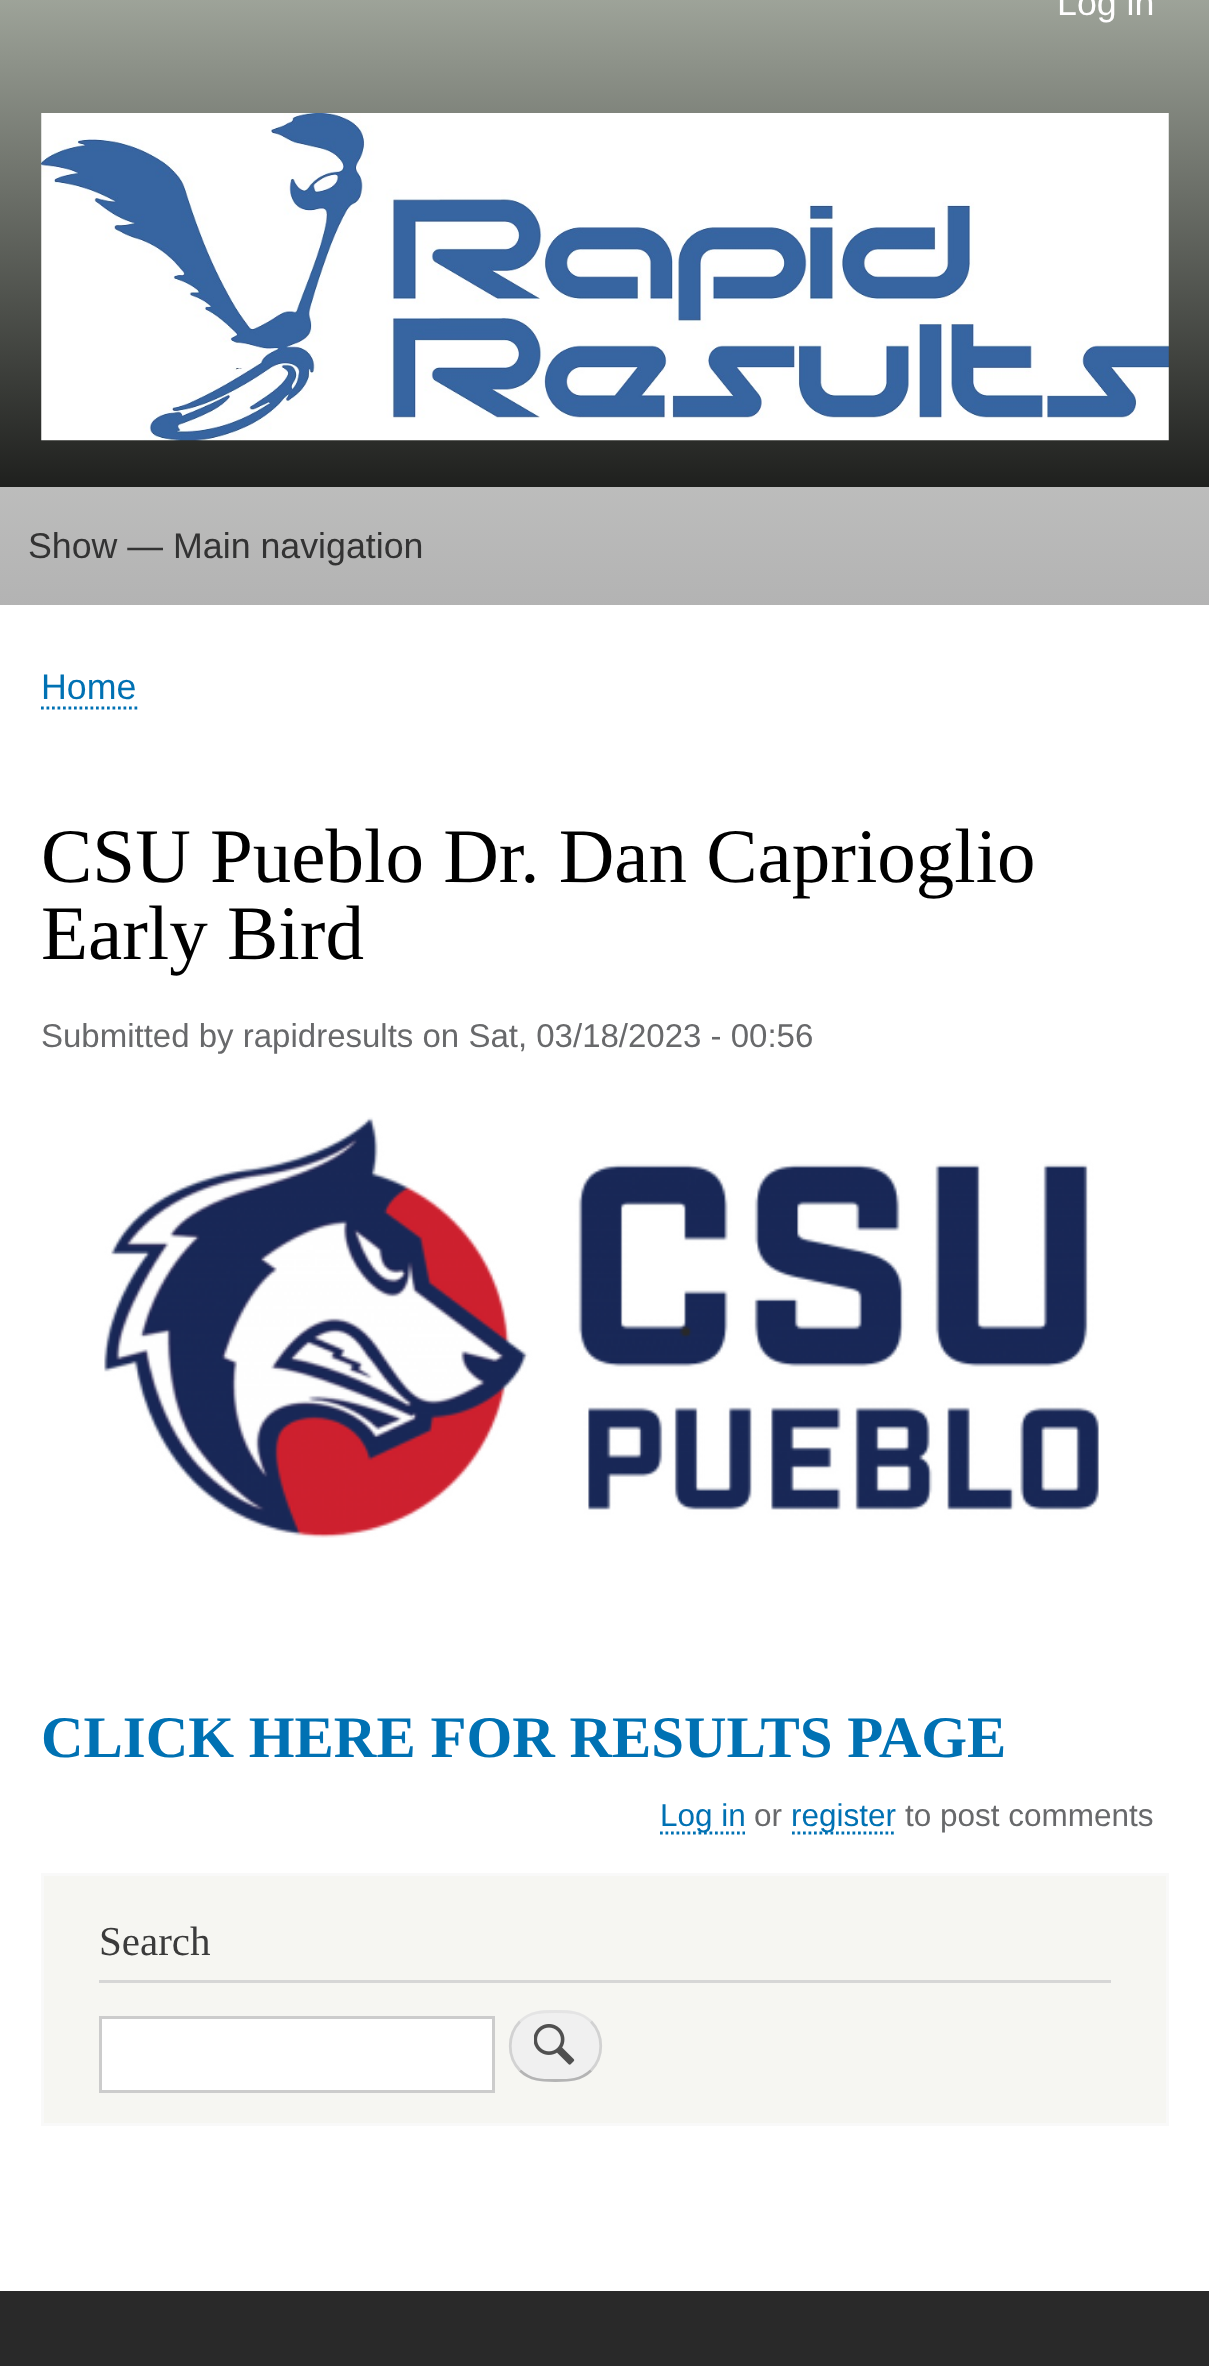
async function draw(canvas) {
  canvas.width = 1209
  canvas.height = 2366
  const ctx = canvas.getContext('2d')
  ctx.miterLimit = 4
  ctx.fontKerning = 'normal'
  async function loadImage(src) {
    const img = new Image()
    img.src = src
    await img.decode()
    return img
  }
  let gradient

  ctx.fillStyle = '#fff'
  ctx.fillRect(0, 0, 1209, 2366)
  gradient = ctx.createLinearGradient(605, -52, 605, 605)
  gradient.addColorStop(0, '#abb1a6')
  gradient.addColorStop(1, '#000')
  ctx.fillStyle = gradient
  ctx.fillRect(0, 0, 1209, 487)
  gradient = ctx.createLinearGradient(605, -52, 605, 605)
  gradient.addColorStop(0, '#e6e8e4')
  gradient.addColorStop(1, '#b3b3b3')
  ctx.fillStyle = gradient
  ctx.fillRect(0, 487, 1209, 118)
  ctx.font = '35.75px Liberation Sans'
  ctx.fillStyle = '#fffeff'
  ctx.fillText('Log in', 1057, 15)
  ctx.drawImage(await loadImage('image0.png'), 41, 113, 1128, 328)
  ctx.fillStyle = '#333'
  ctx.fillText('Show — Main navigation', 28, 558)
  ctx.fillStyle = '#0071b3'
  ctx.fillText('Home', 41, 699)
  ctx.beginPath()
  ctx.moveTo(41, 708)
  ctx.lineTo(137.5, 708)
  ctx.strokeStyle = '#0071b3'
  ctx.lineWidth = 2.8
  ctx.setLineDash([2.75, 2.75])
  ctx.stroke()
  ctx.font = '77px Liberation Serif'
  ctx.fillStyle = '#000'
  ctx.fillText('CSU Pueblo Dr. Dan Caprioglio', 41, 882)
  ctx.fillText('Early Bird', 41, 959)
  ctx.font = '33px Liberation Sans'
  ctx.fillStyle = '#68696b'
  ctx.fillText('Submitted by rapidresults on Sat, 03/18/2023 - 00:56', 41, 1047)
  ctx.drawImage(await loadImage('image1.png'), 104, 1117, 995, 421)
  ctx.font = 'bold 58.9px Liberation Serif'
  ctx.fillStyle = '#0071b3'
  ctx.fillText('CLICK HERE FOR RESULTS PAGE', 41, 1757)
  ctx.beginPath()
  ctx.moveTo(660, 1833)
  ctx.lineTo(745, 1833)
  ctx.stroke()
  ctx.font = '31.5px Liberation Sans'
  ctx.fillText('Log in', 660, 1826)
  ctx.fillStyle = '#68696b'
  ctx.fillText('or', 754, 1826)
  ctx.beginPath()
  ctx.moveTo(792, 1833)
  ctx.lineTo(896.5, 1833)
  ctx.stroke()
  ctx.fillStyle = '#0071b3'
  ctx.fillText('register', 791, 1826)
  ctx.fillStyle = '#68696b'
  ctx.fillText('to post comments', 905, 1826)
  ctx.fillStyle = '#f6f6f2'
  ctx.beginPath()
  ctx.rect(42.5, 1874.5, 1125, 250)
  ctx.fill()
  ctx.strokeStyle = '#f9f9f9'
  ctx.lineWidth = 3
  ctx.setLineDash([])
  ctx.stroke()
  ctx.fillStyle = '#d6d6d6'
  ctx.fillRect(99, 1980, 1012, 3)
  ctx.font = '41px Liberation Serif'
  ctx.fillStyle = '#3b3b3b'
  ctx.fillText('Search', 99, 1955)
  ctx.fillStyle = '#fff'
  ctx.beginPath()
  ctx.rect(100.5, 2017.5, 393, 74)
  ctx.fill()
  ctx.strokeStyle = '#ccc'
  ctx.stroke()
  ctx.fillStyle = '#f0f0f0'
  ctx.beginPath()
  ctx.roundRect(509, 2010, 93, 72, 36)
  ctx.fill()
  ctx.drawImage(await loadImage('image2.png'), 534, 2024, 41, 41)
  ctx.beginPath()
  ctx.moveTo(520, 2021.5)
  ctx.bezierCurveTo(530.5, 2011.5, 542, 2011.5, 555.5, 2011.5)
  ctx.bezierCurveTo(569, 2011.5, 580.5, 2011.5, 591, 2021.5)
  ctx.strokeStyle = '#e4e4e4'
  ctx.lineWidth = 2.8
  ctx.stroke()
  ctx.beginPath()
  ctx.moveTo(591, 2021.5)
  ctx.bezierCurveTo(604, 2035, 604, 2057, 591, 2070.5)
  ctx.strokeStyle = '#d2d2d2'
  ctx.stroke()
  ctx.beginPath()
  ctx.moveTo(591, 2070.5)
  ctx.bezierCurveTo(580.5, 2080.5, 569, 2080.5, 555.5, 2080.5)
  ctx.bezierCurveTo(542, 2080.5, 530.5, 2080.5, 520, 2070.5)
  ctx.strokeStyle = '#b4b4b4'
  ctx.stroke()
  ctx.beginPath()
  ctx.moveTo(520, 2070.5)
  ctx.bezierCurveTo(507, 2057, 507, 2035, 520, 2021.5)
  ctx.strokeStyle = '#d2d2d2'
  ctx.stroke()
  ctx.fillStyle = '#292929'
  ctx.fillRect(0, 2291, 1209, 75)
}

draw(document.querySelector('canvas'))
